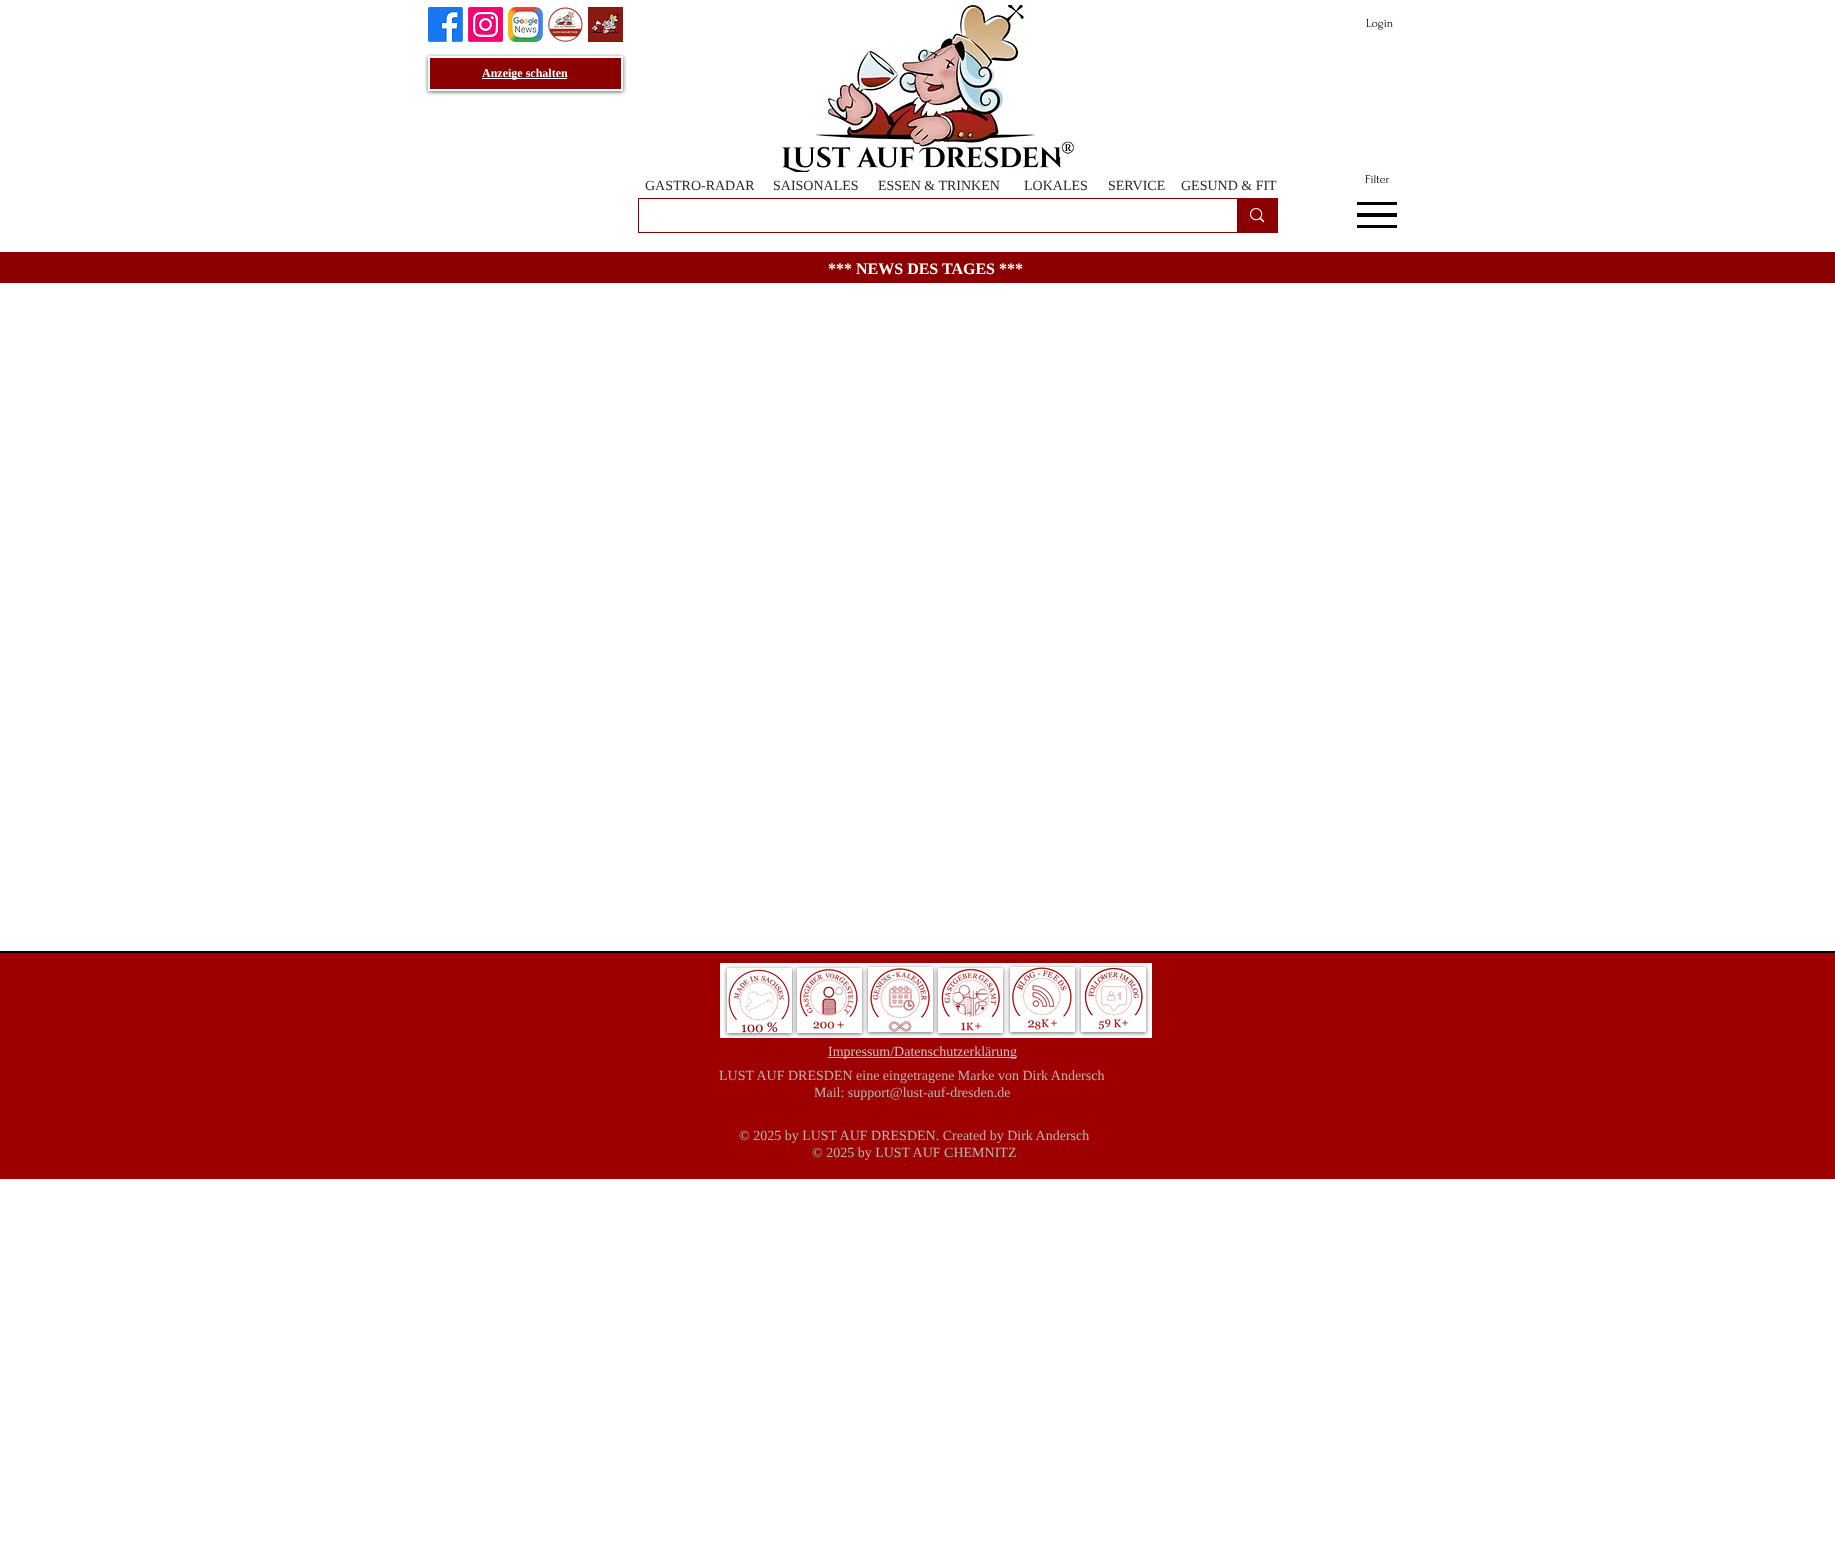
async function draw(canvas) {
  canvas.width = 1835
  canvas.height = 1550
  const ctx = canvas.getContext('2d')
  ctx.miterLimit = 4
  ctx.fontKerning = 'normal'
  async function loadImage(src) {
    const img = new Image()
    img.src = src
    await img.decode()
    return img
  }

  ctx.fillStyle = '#fff'
  ctx.fillRect(0, 0, 1835, 1550)
  ctx.drawImage(await loadImage('image0.png'), 428, 7, 35, 35)
  ctx.drawImage(await loadImage('image1.png'), 468, 7, 35, 35)
  ctx.drawImage(await loadImage('image2.png'), 508, 7, 35, 35)
  ctx.drawImage(await loadImage('image3.png'), 548, 7, 35, 35)
  ctx.drawImage(await loadImage('image4.png'), 588, 7, 35, 35)
  ctx.drawImage(await loadImage('image5.png'), 780, 5, 296, 167)
  ctx.font = '12px Forum'
  ctx.fillStyle = '#000'
  ctx.fillText('Login', 1366, 27)
  ctx.fillStyle = '#00000099'
  ctx.filter = 'blur(2px)'
  ctx.beginPath()
  ctx.rect(428, 57, 195, 35)
  ctx.fill()
  ctx.filter = 'none'
  ctx.fillStyle = '#8b0000'
  ctx.beginPath()
  ctx.rect(429, 57, 193, 33)
  ctx.fill()
  ctx.strokeStyle = '#fff'
  ctx.lineWidth = 2
  ctx.stroke()
  ctx.fillStyle = '#fff'
  ctx.fillRect(482, 78, 85, 1)
  ctx.font = 'bold 12px Liberation Serif'
  ctx.fillText('Anzeige schalten', 482, 77)
  ctx.font = '14px Liberation Serif'
  ctx.fillStyle = '#282626'
  ctx.fillText('GASTRO-RADAR', 645, 190)
  ctx.fillText('SAISONALES', 773, 190)
  ctx.fillText('ESSEN & TRINKEN', 878, 190)
  ctx.fillText('LOKALES', 1024, 190)
  ctx.fillText('SERVICE', 1108, 190)
  ctx.fillText('GESUND & FIT', 1181, 190)
  ctx.font = '12px Forum'
  ctx.fillStyle = '#000'
  ctx.fillText('Filter', 1365, 183)
  ctx.strokeStyle = '#8b0000'
  ctx.lineWidth = 1
  ctx.strokeRect(638.5, 198.5, 639, 34)
  ctx.fillStyle = '#8b0000'
  ctx.fillRect(1237, 199, 40, 33)
  ctx.drawImage(await loadImage('image6.png'), 1250, 208, 15, 15)
  ctx.fillStyle = '#000'
  ctx.fillRect(1357, 225, 40, 3)
  ctx.fillRect(1357, 202, 40, 3)
  ctx.fillRect(1357, 213, 40, 4)
  ctx.fillStyle = '#8b0000'
  ctx.fillRect(0, 252, 1835, 31)
  ctx.font = 'bold 16px Liberation Serif'
  ctx.fillStyle = '#fff'
  ctx.fillText('*** NEWS DES TAGES ***', 828, 274)
  ctx.fillStyle = '#9e0000'
  ctx.fillRect(0, 953, 1835, 226)
  ctx.fillStyle = '#000'
  ctx.fillRect(0, 951, 1835, 2)
  ctx.fillStyle = '#fff'
  ctx.fillRect(720, 963, 432, 75)
  ctx.save()
  ctx.beginPath()
  ctx.moveTo(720, 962)
  ctx.lineTo(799, 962)
  ctx.lineTo(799, 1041)
  ctx.lineTo(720, 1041)
  ctx.closePath()
  ctx.moveTo(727, 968)
  ctx.lineTo(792, 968)
  ctx.lineTo(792, 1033)
  ctx.lineTo(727, 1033)
  ctx.closePath()
  ctx.clip('evenodd')
  ctx.fillStyle = '#00000099'
  ctx.filter = 'blur(2px)'
  ctx.beginPath()
  ctx.rect(727, 969, 65, 65)
  ctx.fill()
  ctx.filter = 'none'
  ctx.restore()
  ctx.drawImage(await loadImage('image7.png'), 728, 969, 62, 64)
  ctx.save()
  ctx.beginPath()
  ctx.moveTo(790, 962)
  ctx.lineTo(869, 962)
  ctx.lineTo(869, 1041)
  ctx.lineTo(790, 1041)
  ctx.closePath()
  ctx.moveTo(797, 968)
  ctx.lineTo(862, 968)
  ctx.lineTo(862, 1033)
  ctx.lineTo(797, 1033)
  ctx.closePath()
  ctx.clip('evenodd')
  ctx.fillStyle = '#00000099'
  ctx.filter = 'blur(2px)'
  ctx.beginPath()
  ctx.rect(797, 969, 65, 65)
  ctx.fill()
  ctx.filter = 'none'
  ctx.restore()
  ctx.drawImage(await loadImage('image8.png'), 799, 969, 59, 60)
  ctx.save()
  ctx.beginPath()
  ctx.moveTo(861, 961)
  ctx.lineTo(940, 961)
  ctx.lineTo(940, 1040)
  ctx.lineTo(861, 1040)
  ctx.closePath()
  ctx.moveTo(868, 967)
  ctx.lineTo(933, 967)
  ctx.lineTo(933, 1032)
  ctx.lineTo(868, 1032)
  ctx.closePath()
  ctx.clip('evenodd')
  ctx.fillStyle = '#00000099'
  ctx.filter = 'blur(2px)'
  ctx.beginPath()
  ctx.rect(868, 968, 65, 65)
  ctx.fill()
  ctx.filter = 'none'
  ctx.restore()
  ctx.drawImage(await loadImage('image9.png'), 870, 968, 60, 64)
  ctx.save()
  ctx.beginPath()
  ctx.moveTo(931, 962)
  ctx.lineTo(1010, 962)
  ctx.lineTo(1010, 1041)
  ctx.lineTo(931, 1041)
  ctx.closePath()
  ctx.moveTo(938, 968)
  ctx.lineTo(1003, 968)
  ctx.lineTo(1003, 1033)
  ctx.lineTo(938, 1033)
  ctx.closePath()
  ctx.clip('evenodd')
  ctx.fillStyle = '#00000099'
  ctx.filter = 'blur(2px)'
  ctx.beginPath()
  ctx.rect(938, 969, 65, 65)
  ctx.fill()
  ctx.filter = 'none'
  ctx.restore()
  ctx.drawImage(await loadImage('image10.png'), 941, 968, 59, 63)
  ctx.save()
  ctx.beginPath()
  ctx.moveTo(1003, 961)
  ctx.lineTo(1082, 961)
  ctx.lineTo(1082, 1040)
  ctx.lineTo(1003, 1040)
  ctx.closePath()
  ctx.moveTo(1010, 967)
  ctx.lineTo(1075, 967)
  ctx.lineTo(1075, 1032)
  ctx.lineTo(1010, 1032)
  ctx.closePath()
  ctx.clip('evenodd')
  ctx.fillStyle = '#00000099'
  ctx.filter = 'blur(2px)'
  ctx.beginPath()
  ctx.rect(1010, 968, 65, 65)
  ctx.fill()
  ctx.filter = 'none'
  ctx.restore()
  ctx.drawImage(await loadImage('image11.png'), 1012, 967, 60, 63)
  ctx.save()
  ctx.beginPath()
  ctx.moveTo(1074, 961)
  ctx.lineTo(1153, 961)
  ctx.lineTo(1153, 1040)
  ctx.lineTo(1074, 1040)
  ctx.closePath()
  ctx.moveTo(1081, 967)
  ctx.lineTo(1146, 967)
  ctx.lineTo(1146, 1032)
  ctx.lineTo(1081, 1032)
  ctx.closePath()
  ctx.clip('evenodd')
  ctx.fillStyle = '#00000099'
  ctx.filter = 'blur(2px)'
  ctx.beginPath()
  ctx.rect(1081, 968, 65, 65)
  ctx.fill()
  ctx.filter = 'none'
  ctx.restore()
  ctx.drawImage(await loadImage('image12.png'), 1084, 967, 59, 63)
  ctx.fillStyle = '#c2c2c2'
  ctx.fillRect(828, 1057, 188, 1)
  ctx.font = '14px Liberation Serif'
  ctx.fillText('Impressum/Datenschutzerklärung', 828, 1056)
  ctx.fillStyle = '#b5b5b5'
  ctx.fillText('LUST AUF DRESDEN eine eingetragene Marke von Dirk Andersch', 719, 1080)
  ctx.fillText('Mail: support@lust-auf-dresden.de', 814, 1097)
  ctx.fillText('© 2025 by LUST AUF DRESDEN. Created by Dirk Andersch', 739, 1140)
  ctx.fillText('© 2025 by LUST AUF CHEMNITZ', 812, 1157)
}

draw(document.querySelector('canvas'))
